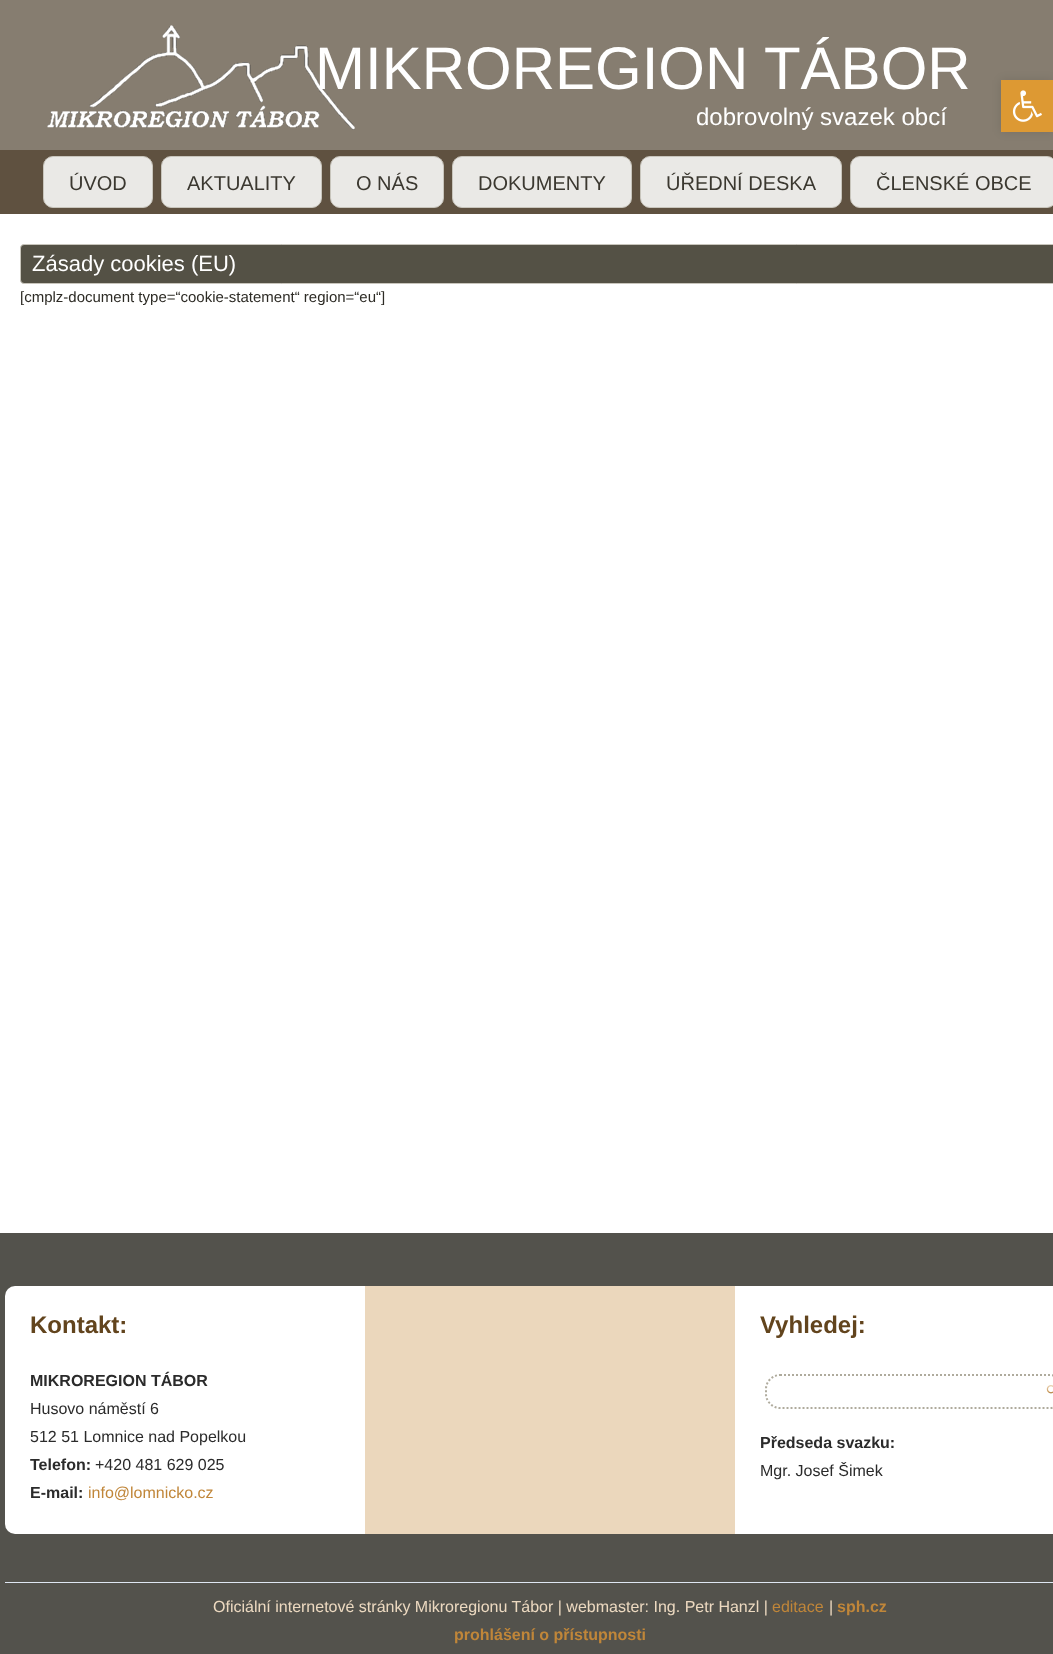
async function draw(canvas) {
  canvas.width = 1053
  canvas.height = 1654
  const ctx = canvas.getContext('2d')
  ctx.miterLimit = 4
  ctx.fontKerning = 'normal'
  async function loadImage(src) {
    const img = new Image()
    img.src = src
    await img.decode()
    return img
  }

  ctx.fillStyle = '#fff'
  ctx.fillRect(0, 0, 1053, 1654)
  ctx.fillStyle = '#867d70'
  ctx.fillRect(0, 0, 1053, 150)
  ctx.drawImage(await loadImage('image0.png'), 47, 25, 308, 105)
  ctx.font = '60px Liberation Sans'
  ctx.fillStyle = '#fff'
  ctx.fillText('MIKROREGION TÁBOR', 315, 89)
  ctx.font = '24px Liberation Sans'
  ctx.fillText('dobrovolný svazek obcí', 696, 125)
  ctx.fillStyle = '#5f5140'
  ctx.fillRect(0, 150, 1053, 64)
  ctx.fillStyle = '#eae9e6'
  ctx.beginPath()
  ctx.roundRect(43.5, 156.5, 109, 51, 9.5)
  ctx.fill()
  ctx.strokeStyle = '#c8c5bc'
  ctx.stroke()
  ctx.font = '20px Liberation Sans'
  ctx.fillStyle = '#3b3830'
  ctx.fillText('ÚVOD', 69, 190)
  ctx.fillStyle = '#eae9e6'
  ctx.beginPath()
  ctx.roundRect(161.5, 156.5, 160, 51, 9.5)
  ctx.fill()
  ctx.stroke()
  ctx.fillStyle = '#3b3830'
  ctx.fillText('AKTUALITY', 187, 190)
  ctx.fillStyle = '#eae9e6'
  ctx.beginPath()
  ctx.roundRect(330.5, 156.5, 113, 51, 9.5)
  ctx.fill()
  ctx.stroke()
  ctx.fillStyle = '#3b3830'
  ctx.fillText('O NÁS', 356, 190)
  ctx.fillStyle = '#eae9e6'
  ctx.beginPath()
  ctx.roundRect(452.5, 156.5, 179, 51, 9.5)
  ctx.fill()
  ctx.stroke()
  ctx.fillStyle = '#3b3830'
  ctx.fillText('DOKUMENTY', 478, 190)
  ctx.fillStyle = '#eae9e6'
  ctx.beginPath()
  ctx.roundRect(640.5, 156.5, 201, 51, 9.5)
  ctx.fill()
  ctx.stroke()
  ctx.fillStyle = '#3b3830'
  ctx.fillText('ÚŘEDNÍ DESKA', 666, 190)
  ctx.fillStyle = '#eae9e6'
  ctx.beginPath()
  ctx.roundRect(850.5, 156.5, 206, 51, 9.5)
  ctx.fill()
  ctx.stroke()
  ctx.fillStyle = '#3b3830'
  ctx.fillText('ČLENSKÉ OBCE', 876, 190)
  ctx.fillStyle = '#545145'
  ctx.beginPath()
  ctx.roundRect(20.5, 244.5, 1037, 39, 3.5)
  ctx.fill()
  ctx.stroke()
  ctx.font = '22px Liberation Sans'
  ctx.fillStyle = '#fff'
  ctx.fillText('Zásady cookies (EU)', 32, 271)
  ctx.font = '15px Liberation Sans'
  ctx.fillStyle = '#2d2b25'
  ctx.fillText('[cmplz-document type=“cookie-statement“ region=“eu“]', 20, 302)
  ctx.fillStyle = '#53524c'
  ctx.fillRect(0, 1233, 1053, 421)
  ctx.fillStyle = '#fff'
  ctx.beginPath()
  ctx.roundRect(5, 1286, 360, 248, [10, 0, 0, 10])
  ctx.fill()
  ctx.font = 'bold 24px Liberation Sans'
  ctx.fillStyle = '#62441d'
  ctx.fillText('Kontakt:', 30, 1333)
  ctx.font = 'bold 16px Liberation Sans'
  ctx.fillStyle = '#2b2b2b'
  ctx.fillText('MIKROREGION TÁBOR', 30, 1386)
  ctx.font = '16px Liberation Sans'
  ctx.fillText('Husovo náměstí 6', 30, 1414)
  ctx.fillText('512 51 Lomnice nad Popelkou', 30, 1442)
  ctx.font = 'bold 16px Liberation Sans'
  ctx.fillText('Telefon:', 30, 1470)
  ctx.font = '16px Liberation Sans'
  ctx.fillText('+420 481 629 025', 95, 1470)
  ctx.font = 'bold 16px Liberation Sans'
  ctx.fillText('E-mail:', 30, 1498)
  ctx.font = '16px Liberation Sans'
  ctx.fillStyle = '#c08639'
  ctx.fillText('info@lomnicko.cz', 88, 1498)
  ctx.fillStyle = '#ebd7bc'
  ctx.fillRect(365, 1286, 370, 248)
  ctx.fillStyle = '#fff'
  ctx.fillRect(735, 1286, 318, 248)
  ctx.font = 'bold 24px Liberation Sans'
  ctx.fillStyle = '#62441d'
  ctx.fillText('Vyhledej:', 760, 1333)
  ctx.beginPath()
  ctx.moveTo(780, 1375)
  ctx.lineTo(1050, 1375)
  ctx.bezierCurveTo(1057.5, 1375, 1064, 1381.5, 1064, 1389)
  ctx.lineTo(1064, 1394)
  ctx.bezierCurveTo(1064, 1401.5, 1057.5, 1408, 1050, 1408)
  ctx.lineTo(780, 1408)
  ctx.bezierCurveTo(772.5, 1408, 766, 1401.5, 766, 1394)
  ctx.lineTo(766, 1389)
  ctx.bezierCurveTo(766, 1381.5, 772.5, 1375, 780, 1375)
  ctx.closePath()
  ctx.strokeStyle = '#afab9d'
  ctx.lineWidth = 2
  ctx.setLineDash([2, 2])
  ctx.stroke()
  ctx.drawImage(await loadImage('image1.png'), 1046, 1385, 7, 9)
  ctx.font = 'bold 16px Liberation Sans'
  ctx.fillStyle = '#2b2b2b'
  ctx.fillText('Předseda svazku:', 760, 1448)
  ctx.font = '16px Liberation Sans'
  ctx.fillText('Mgr. Josef Šimek', 760, 1476)
  ctx.fillStyle = '#dee6f2'
  ctx.fillRect(5, 1582, 1048, 1)
  ctx.fillStyle = '#ecd9c0'
  ctx.fillText('Oficiální internetové stránky Mikroregionu Tábor | webmaster: Ing. Petr Hanzl |', 213, 1612)
  ctx.fillStyle = '#c08639'
  ctx.fillText('editace', 772, 1612)
  ctx.fillStyle = '#ecd9c0'
  ctx.fillText('|', 829, 1612)
  ctx.font = 'bold 16px Liberation Sans'
  ctx.fillStyle = '#c08639'
  ctx.fillText('sph.cz', 837, 1612)
  ctx.fillText('prohlášení o přístupnosti', 454, 1640)
  ctx.fillStyle = '#0000001a'
  ctx.filter = 'blur(5px)'
  ctx.beginPath()
  ctx.rect(1001, 80, 52, 52)
  ctx.fill()
  ctx.filter = 'none'
  ctx.fillStyle = '#d93'
  ctx.fillRect(1001, 80, 52, 52)
  ctx.drawImage(await loadImage('image2.png'), 1012, 90, 30, 32)
}

draw(document.querySelector('canvas'))
